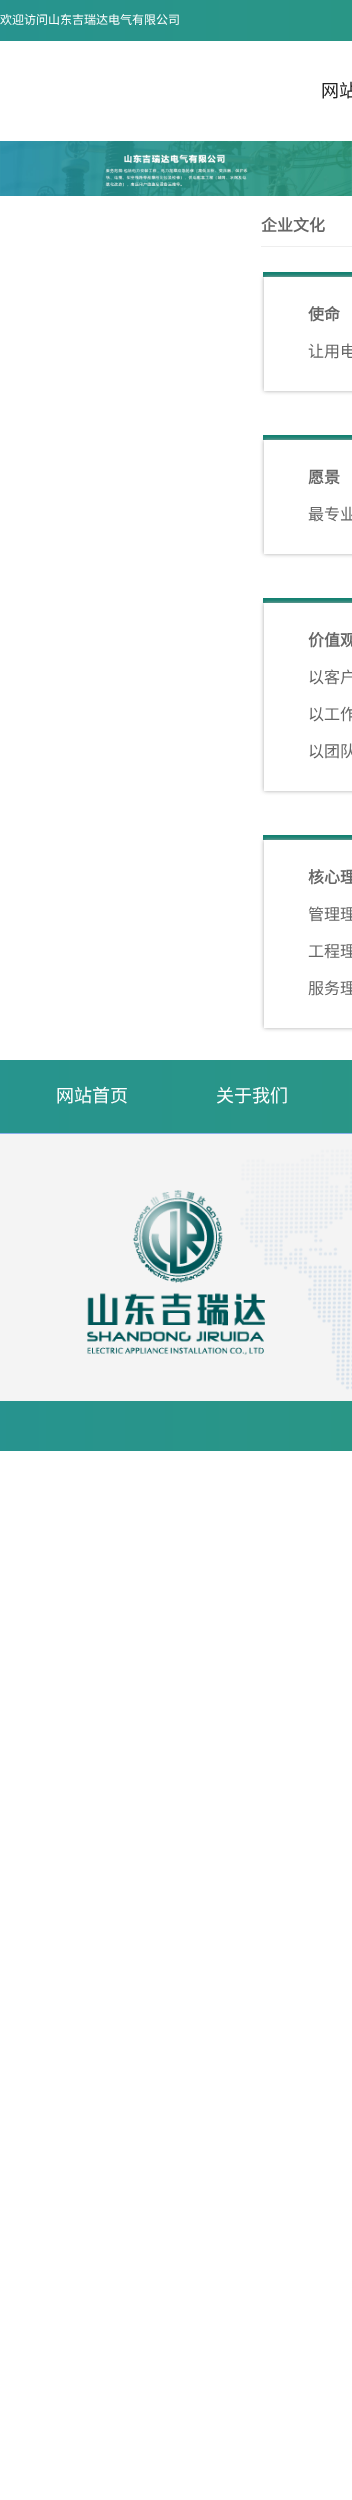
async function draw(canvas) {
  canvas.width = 352
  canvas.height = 2500
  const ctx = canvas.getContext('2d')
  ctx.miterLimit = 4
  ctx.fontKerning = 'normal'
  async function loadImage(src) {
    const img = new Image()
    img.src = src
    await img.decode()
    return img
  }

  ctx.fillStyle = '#fff'
  ctx.fillRect(0, 0, 352, 2500)
  ctx.drawImage(await loadImage('image0.png'), 0, 0, 352, 41)
  ctx.font = '12px Noto Sans CJK SC'
  ctx.fillText('欢迎访问山东吉瑞达电气有限公司', 0, 24)
  ctx.font = '18px Noto Sans CJK SC'
  ctx.fillStyle = '#222'
  ctx.fillText('网站', 321, 97)
  ctx.drawImage(await loadImage('image1.png'), 0, 141, 352, 55)
  ctx.fillStyle = '#eee'
  ctx.fillRect(261, 246, 91, 1)
  ctx.font = 'bold 16px Noto Sans CJK SC'
  ctx.fillStyle = '#666'
  ctx.fillText('企业文化', 261, 231)
  ctx.fillStyle = '#128171'
  ctx.fillRect(263, 272, 89, 5)
  ctx.save()
  ctx.beginPath()
  ctx.moveTo(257, 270)
  ctx.lineTo(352, 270)
  ctx.lineTo(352, 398)
  ctx.lineTo(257, 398)
  ctx.closePath()
  ctx.moveTo(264, 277)
  ctx.lineTo(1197, 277)
  ctx.lineTo(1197, 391)
  ctx.lineTo(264, 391)
  ctx.closePath()
  ctx.clip('evenodd')
  ctx.fillStyle = '#aaa'
  ctx.filter = 'blur(2px)'
  ctx.beginPath()
  ctx.rect(264, 277, 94, 114)
  ctx.fill()
  ctx.filter = 'none'
  ctx.restore()
  ctx.fillStyle = '#666'
  ctx.fillText('使命', 308, 320)
  ctx.font = '16px Noto Sans CJK SC'
  ctx.fillText('让用电', 308, 357)
  ctx.fillStyle = '#128171'
  ctx.fillRect(263, 435, 89, 5)
  ctx.save()
  ctx.beginPath()
  ctx.moveTo(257, 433)
  ctx.lineTo(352, 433)
  ctx.lineTo(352, 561)
  ctx.lineTo(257, 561)
  ctx.closePath()
  ctx.moveTo(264, 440)
  ctx.lineTo(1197, 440)
  ctx.lineTo(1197, 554)
  ctx.lineTo(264, 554)
  ctx.closePath()
  ctx.clip('evenodd')
  ctx.fillStyle = '#aaa'
  ctx.filter = 'blur(2px)'
  ctx.beginPath()
  ctx.rect(264, 440, 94, 114)
  ctx.fill()
  ctx.filter = 'none'
  ctx.restore()
  ctx.font = 'bold 16px Noto Sans CJK SC'
  ctx.fillStyle = '#666'
  ctx.fillText('愿景', 308, 483)
  ctx.font = '16px Noto Sans CJK SC'
  ctx.fillText('最专业', 308, 520)
  ctx.fillStyle = '#128171'
  ctx.fillRect(263, 598, 89, 5)
  ctx.save()
  ctx.beginPath()
  ctx.moveTo(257, 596)
  ctx.lineTo(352, 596)
  ctx.lineTo(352, 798)
  ctx.lineTo(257, 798)
  ctx.closePath()
  ctx.moveTo(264, 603)
  ctx.lineTo(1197, 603)
  ctx.lineTo(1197, 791)
  ctx.lineTo(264, 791)
  ctx.closePath()
  ctx.clip('evenodd')
  ctx.fillStyle = '#aaa'
  ctx.filter = 'blur(2px)'
  ctx.beginPath()
  ctx.rect(264, 603, 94, 188)
  ctx.fill()
  ctx.filter = 'none'
  ctx.restore()
  ctx.font = 'bold 16px Noto Sans CJK SC'
  ctx.fillStyle = '#666'
  ctx.fillText('价值观', 308, 646)
  ctx.font = '16px Noto Sans CJK SC'
  ctx.fillText('以客户', 308, 683)
  ctx.fillText('以工作', 308, 720)
  ctx.fillText('以团队', 308, 757)
  ctx.fillStyle = '#128171'
  ctx.fillRect(263, 835, 89, 5)
  ctx.save()
  ctx.beginPath()
  ctx.moveTo(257, 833)
  ctx.lineTo(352, 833)
  ctx.lineTo(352, 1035)
  ctx.lineTo(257, 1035)
  ctx.closePath()
  ctx.moveTo(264, 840)
  ctx.lineTo(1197, 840)
  ctx.lineTo(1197, 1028)
  ctx.lineTo(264, 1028)
  ctx.closePath()
  ctx.clip('evenodd')
  ctx.fillStyle = '#aaa'
  ctx.filter = 'blur(2px)'
  ctx.beginPath()
  ctx.rect(264, 840, 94, 188)
  ctx.fill()
  ctx.filter = 'none'
  ctx.restore()
  ctx.font = 'bold 16px Noto Sans CJK SC'
  ctx.fillStyle = '#666'
  ctx.fillText('核心理', 308, 883)
  ctx.font = '16px Noto Sans CJK SC'
  ctx.fillText('管理理', 308, 920)
  ctx.fillText('工程理', 308, 957)
  ctx.fillText('服务理', 308, 994)
  ctx.drawImage(await loadImage('image2.png'), 0, 1060, 352, 73)
  ctx.font = '18px Noto Sans CJK SC'
  ctx.fillStyle = '#fff'
  ctx.fillText('网站首页', 56, 1102)
  ctx.fillText('关于我们', 216, 1102)
  ctx.drawImage(await loadImage('image3.png'), 0, 1133, 352, 268)
  ctx.drawImage(await loadImage('image4.png'), 87, 1190, 178, 165)
  ctx.drawImage(await loadImage('image5.png'), 0, 1401, 352, 50)
}

draw(document.querySelector('canvas'))
